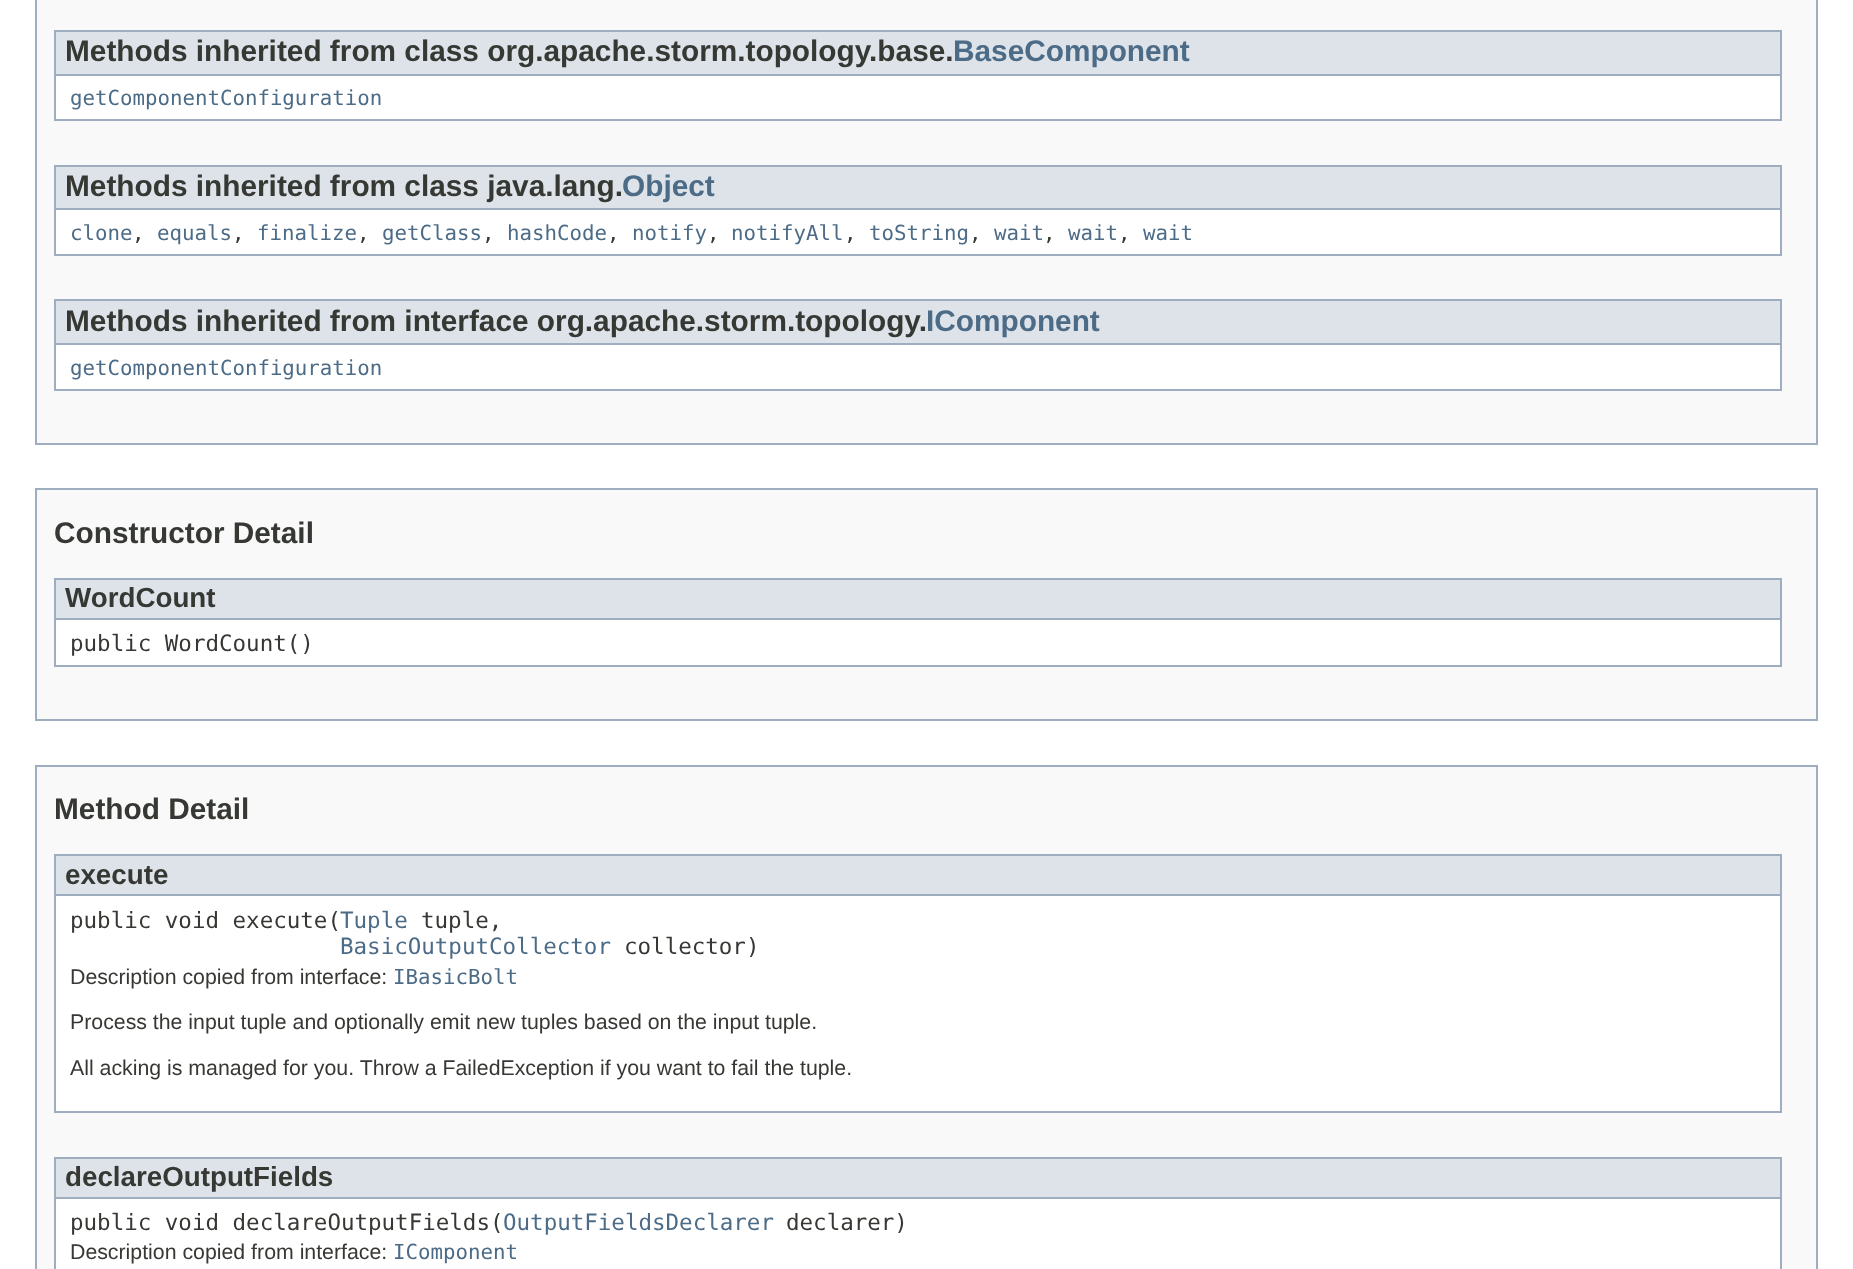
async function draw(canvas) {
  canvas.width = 1853
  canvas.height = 1269
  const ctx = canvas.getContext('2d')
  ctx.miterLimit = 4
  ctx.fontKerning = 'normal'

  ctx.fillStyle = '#fff'
  ctx.fillRect(0, 0, 1853, 1269)
  ctx.fillStyle = '#f9f9f9'
  ctx.beginPath()
  ctx.rect(36, -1, 1781, 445)
  ctx.fill()
  ctx.strokeStyle = '#9eadc0'
  ctx.lineWidth = 2
  ctx.stroke()
  ctx.fillStyle = '#fff'
  ctx.fillRect(56, 76, 1724, 43)
  ctx.fillStyle = '#9eadc0'
  ctx.fillRect(1780, 30, 2, 91)
  ctx.fillRect(54, 119, 1728, 2)
  ctx.fillRect(54, 30, 2, 91)
  ctx.fillStyle = '#dee3e9'
  ctx.fillRect(56, 32, 1724, 42)
  ctx.fillStyle = '#9eadc0'
  ctx.fillRect(56, 30, 1724, 2)
  ctx.fillRect(56, 74, 1724, 2)
  ctx.font = 'bold 29.8px Liberation Sans'
  ctx.fillStyle = '#353833'
  ctx.fillText('Methods inherited from class org.apache.storm.topology.base.', 65, 61)
  ctx.fillStyle = '#4c6b87'
  ctx.fillText('BaseComponent', 953, 61)
  ctx.font = '20.75px DejaVu Sans Mono'
  ctx.fillText('getComponentConfiguration', 70, 105)
  ctx.fillStyle = '#fff'
  ctx.fillRect(56, 210, 1724, 44)
  ctx.fillStyle = '#9eadc0'
  ctx.fillRect(1780, 165, 2, 91)
  ctx.fillRect(54, 254, 1728, 2)
  ctx.fillRect(54, 165, 2, 91)
  ctx.fillStyle = '#dee3e9'
  ctx.fillRect(56, 167, 1724, 41)
  ctx.fillStyle = '#9eadc0'
  ctx.fillRect(56, 165, 1724, 2)
  ctx.fillRect(56, 208, 1724, 2)
  ctx.font = 'bold 29.8px Liberation Sans'
  ctx.fillStyle = '#353833'
  ctx.fillText('Methods inherited from class java.lang.', 65, 196)
  ctx.fillStyle = '#4c6b87'
  ctx.fillText('Object', 622, 196)
  ctx.font = '20.75px DejaVu Sans Mono'
  ctx.fillText('clone', 70, 240)
  ctx.fillStyle = '#353833'
  ctx.fillText(',', 132, 240)
  ctx.fillStyle = '#4c6b87'
  ctx.fillText('equals', 157, 240)
  ctx.fillStyle = '#353833'
  ctx.fillText(',', 232, 240)
  ctx.fillStyle = '#4c6b87'
  ctx.fillText('finalize', 257, 240)
  ctx.fillStyle = '#353833'
  ctx.fillText(',', 357, 240)
  ctx.fillStyle = '#4c6b87'
  ctx.fillText('getClass', 382, 240)
  ctx.fillStyle = '#353833'
  ctx.fillText(',', 482, 240)
  ctx.fillStyle = '#4c6b87'
  ctx.fillText('hashCode', 507, 240)
  ctx.fillStyle = '#353833'
  ctx.fillText(',', 607, 240)
  ctx.fillStyle = '#4c6b87'
  ctx.fillText('notify', 632, 240)
  ctx.fillStyle = '#353833'
  ctx.fillText(',', 707, 240)
  ctx.fillStyle = '#4c6b87'
  ctx.fillText('notifyAll', 731, 240)
  ctx.fillStyle = '#353833'
  ctx.fillText(',', 844, 240)
  ctx.fillStyle = '#4c6b87'
  ctx.fillText('toString', 869, 240)
  ctx.fillStyle = '#353833'
  ctx.fillText(',', 969, 240)
  ctx.fillStyle = '#4c6b87'
  ctx.fillText('wait', 994, 240)
  ctx.fillStyle = '#353833'
  ctx.fillText(',', 1043, 240)
  ctx.fillStyle = '#4c6b87'
  ctx.fillText('wait', 1068, 240)
  ctx.fillStyle = '#353833'
  ctx.fillText(',', 1118, 240)
  ctx.fillStyle = '#4c6b87'
  ctx.fillText('wait', 1143, 240)
  ctx.fillStyle = '#fff'
  ctx.fillRect(56, 345, 1724, 44)
  ctx.fillStyle = '#9eadc0'
  ctx.fillRect(1780, 299, 2, 91)
  ctx.fillRect(54, 389, 1728, 2)
  ctx.fillRect(54, 299, 2, 91)
  ctx.fillStyle = '#dee3e9'
  ctx.fillRect(56, 301, 1724, 42)
  ctx.fillStyle = '#9eadc0'
  ctx.fillRect(56, 299, 1724, 2)
  ctx.fillRect(56, 343, 1724, 2)
  ctx.font = 'bold 29.8px Liberation Sans'
  ctx.fillStyle = '#353833'
  ctx.fillText('Methods inherited from interface org.apache.storm.topology.', 65, 331)
  ctx.fillStyle = '#4c6b87'
  ctx.fillText('IComponent', 926, 331)
  ctx.font = '20.75px DejaVu Sans Mono'
  ctx.fillText('getComponentConfiguration', 70, 375)
  ctx.fillStyle = '#f9f9f9'
  ctx.beginPath()
  ctx.rect(36, 489, 1781, 231)
  ctx.fill()
  ctx.stroke()
  ctx.font = 'bold 29.8px Liberation Sans'
  ctx.fillStyle = '#353833'
  ctx.fillText('Constructor Detail', 54, 543)
  ctx.fillStyle = '#fff'
  ctx.fillRect(56, 620, 1724, 45)
  ctx.fillStyle = '#9eadc0'
  ctx.fillRect(1780, 578, 2, 89)
  ctx.fillRect(54, 665, 1728, 2)
  ctx.fillRect(54, 578, 2, 89)
  ctx.fillStyle = '#dee3e9'
  ctx.fillRect(56, 580, 1724, 38)
  ctx.fillStyle = '#9eadc0'
  ctx.fillRect(56, 578, 1724, 2)
  ctx.fillRect(56, 618, 1724, 2)
  ctx.font = 'bold 27.75px Liberation Sans'
  ctx.fillStyle = '#353833'
  ctx.fillText('WordCount', 65, 607)
  ctx.font = '22.5px DejaVu Sans Mono'
  ctx.fillText('public WordCount()', 70, 651)
  ctx.fillStyle = '#f9f9f9'
  ctx.beginPath()
  ctx.rect(36, 766, 1781, 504)
  ctx.fill()
  ctx.stroke()
  ctx.font = 'bold 29.8px Liberation Sans'
  ctx.fillStyle = '#353833'
  ctx.fillText('Method Detail', 54, 819)
  ctx.fillStyle = '#fff'
  ctx.fillRect(56, 896, 1724, 215)
  ctx.fillStyle = '#9eadc0'
  ctx.fillRect(1780, 854, 2, 259)
  ctx.fillRect(54, 1111, 1728, 2)
  ctx.fillRect(54, 854, 2, 259)
  ctx.fillStyle = '#dee3e9'
  ctx.fillRect(56, 856, 1724, 38)
  ctx.fillStyle = '#9eadc0'
  ctx.fillRect(56, 854, 1724, 2)
  ctx.fillRect(56, 894, 1724, 2)
  ctx.font = 'bold 27.75px Liberation Sans'
  ctx.fillStyle = '#353833'
  ctx.fillText('execute', 65, 884)
  ctx.font = '22.5px DejaVu Sans Mono'
  ctx.fillText('public void execute(', 70, 928)
  ctx.fillStyle = '#4c6b87'
  ctx.fillText('Tuple', 340, 928)
  ctx.fillStyle = '#353833'
  ctx.fillText('tuple,', 421, 928)
  ctx.fillStyle = '#4c6b87'
  ctx.fillText('BasicOutputCollector', 340, 954)
  ctx.fillStyle = '#353833'
  ctx.fillText('collector)', 624, 954)
  ctx.font = '21.3px Liberation Sans'
  ctx.fillText('Description copied from interface:', 70, 984)
  ctx.font = '20.75px DejaVu Sans Mono'
  ctx.fillStyle = '#4c6b87'
  ctx.fillText('IBasicBolt', 393, 984)
  ctx.font = '21.3px Liberation Sans'
  ctx.fillStyle = '#353833'
  ctx.fillText('Process the input tuple and optionally emit new tuples based on the input tuple.', 70, 1029)
  ctx.fillText('All acking is managed for you. Throw a FailedException if you want to fail the tuple.', 70, 1075)
  ctx.fillStyle = '#fff'
  ctx.fillRect(56, 1199, 1724, 70)
  ctx.fillStyle = '#9eadc0'
  ctx.fillRect(1780, 1157, 2, 112)
  ctx.fillRect(54, 1157, 2, 112)
  ctx.fillStyle = '#dee3e9'
  ctx.fillRect(56, 1159, 1724, 38)
  ctx.fillStyle = '#9eadc0'
  ctx.fillRect(56, 1157, 1724, 2)
  ctx.fillRect(56, 1197, 1724, 2)
  ctx.font = 'bold 27.75px Liberation Sans'
  ctx.fillStyle = '#353833'
  ctx.fillText('declareOutputFields', 65, 1186)
  ctx.font = '22.5px DejaVu Sans Mono'
  ctx.fillText('public void declareOutputFields(', 70, 1230)
  ctx.fillStyle = '#4c6b87'
  ctx.fillText('OutputFieldsDeclarer', 503, 1230)
  ctx.fillStyle = '#353833'
  ctx.fillText('declarer)', 786, 1230)
  ctx.font = '21.3px Liberation Sans'
  ctx.fillText('Description copied from interface:', 70, 1259)
  ctx.font = '20.75px DejaVu Sans Mono'
  ctx.fillStyle = '#4c6b87'
  ctx.fillText('IComponent', 393, 1259)
}

draw(document.querySelector('canvas'))
